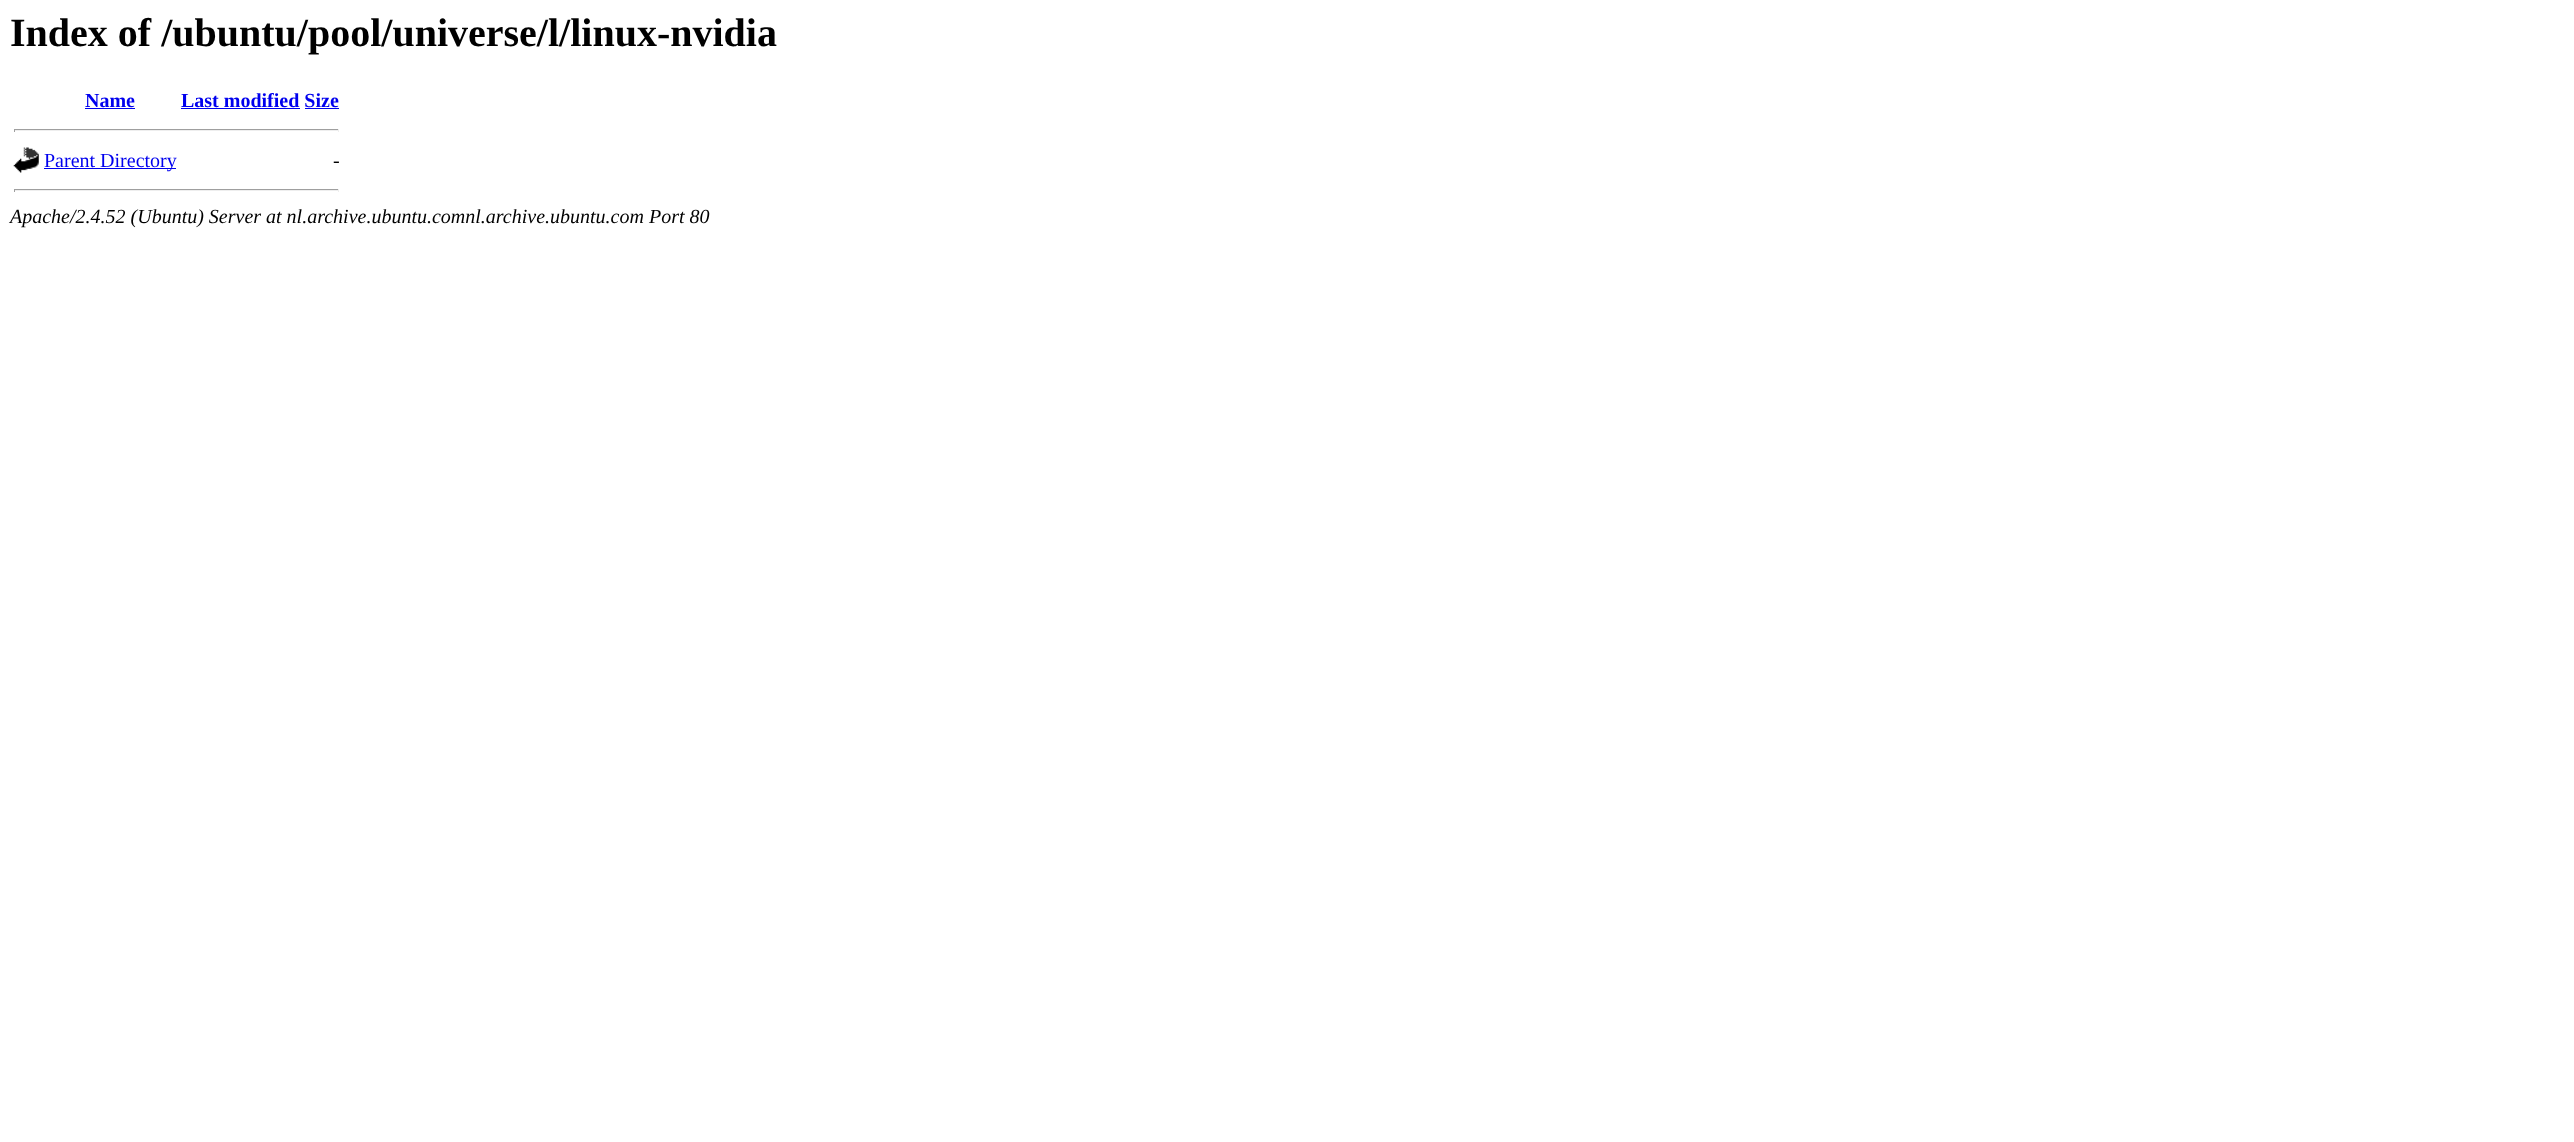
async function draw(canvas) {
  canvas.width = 2574
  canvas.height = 1142
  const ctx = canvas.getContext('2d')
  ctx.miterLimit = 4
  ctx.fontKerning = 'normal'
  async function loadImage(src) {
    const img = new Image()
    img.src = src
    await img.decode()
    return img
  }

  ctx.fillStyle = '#fff'
  ctx.fillRect(0, 0, 2574, 1142)
  ctx.font = 'bold 40px Liberation Serif'
  ctx.fillStyle = '#000'
  ctx.fillText('Index of /ubuntu/pool/universe/l/linux-nvidia', 10, 46)
  ctx.font = 'bold 20px Liberation Serif'
  ctx.fillStyle = '#00e'
  ctx.fillText('Name', 85, 107)
  ctx.fillRect(85, 108, 50, 1)
  ctx.fillText('Last modified Size', 181, 107)
  ctx.fillRect(181, 108, 119, 1)
  ctx.fillRect(305, 108, 34, 1)
  ctx.fillStyle = '#9f9f9f'
  ctx.fillRect(14, 129, 325, 1)
  ctx.fillStyle = '#eee'
  ctx.fillRect(338, 129, 1, 3)
  ctx.fillRect(14, 130, 325, 1)
  ctx.fillStyle = '#9f9f9f'
  ctx.fillRect(14, 129, 1, 3)
  ctx.drawImage(await loadImage('image0.png'), 13, 147, 26, 26)
  ctx.fillStyle = '#00e'
  ctx.fillRect(44, 168, 132, 1)
  ctx.font = '20px Liberation Serif'
  ctx.fillText('Parent Directory', 44, 167)
  ctx.fillStyle = '#000'
  ctx.fillText('-', 333, 167)
  ctx.fillStyle = '#9f9f9f'
  ctx.fillRect(14, 189, 325, 1)
  ctx.fillStyle = '#eee'
  ctx.fillRect(338, 189, 1, 3)
  ctx.fillRect(14, 190, 325, 1)
  ctx.fillStyle = '#9f9f9f'
  ctx.fillRect(14, 189, 1, 3)
  ctx.font = 'italic 20px Liberation Serif'
  ctx.fillStyle = '#000'
  ctx.fillText('Apache/2.4.52 (Ubuntu) Server at nl.archive.ubuntu.comnl.archive.ubuntu.com Port 80', 10, 223)
}

draw(document.querySelector('canvas'))
